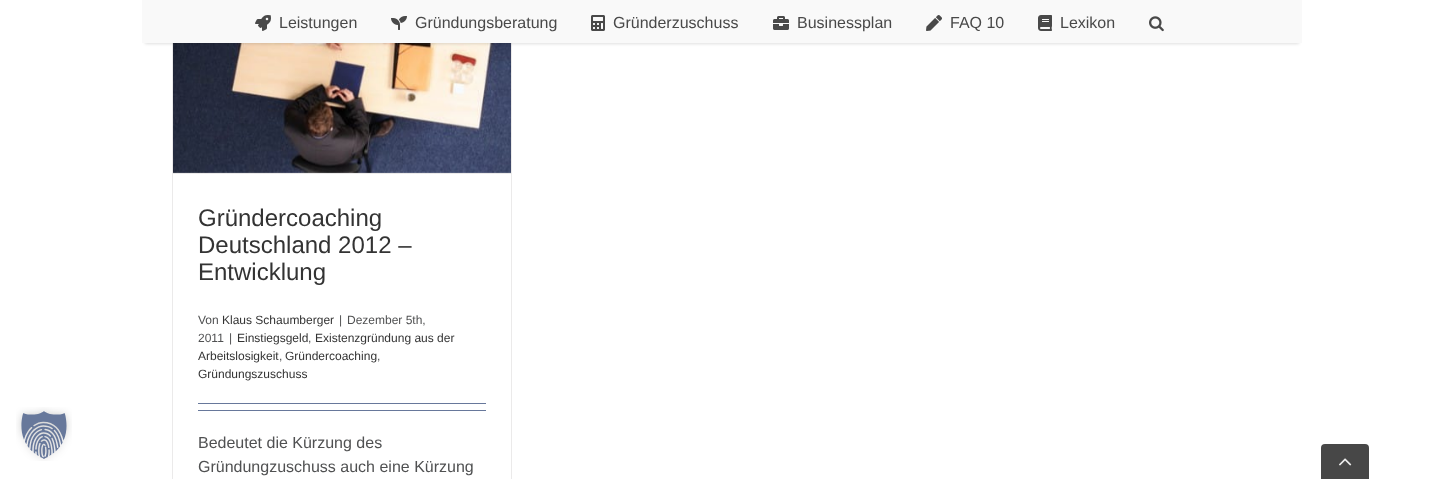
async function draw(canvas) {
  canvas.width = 1444
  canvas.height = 479
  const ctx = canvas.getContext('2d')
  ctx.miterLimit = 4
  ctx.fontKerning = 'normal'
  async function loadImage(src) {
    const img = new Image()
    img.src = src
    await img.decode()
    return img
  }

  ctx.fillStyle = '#fff'
  ctx.fillRect(0, 0, 1444, 479)
  ctx.drawImage(await loadImage('image0.png'), 16, 407, 56, 54)
  ctx.fillStyle = '#ebeaea'
  ctx.fillRect(511, 43, 1, 436)
  ctx.fillRect(172, 43, 1, 436)
  ctx.drawImage(await loadImage('image8.png'), 173, 43, 338, 130)
  ctx.fillStyle = '#0000001f'
  ctx.filter = 'blur(1.5px)'
  ctx.beginPath()
  ctx.rect(145, 7, 1154, 37)
  ctx.fill()
  ctx.filter = 'none'
  ctx.fillStyle = '#f9f9f9'
  ctx.fillRect(142, 0, 1160, 43)
  ctx.drawImage(await loadImage('image1.png'), 255, 15, 16, 16)
  ctx.font = '16px Liberation Sans'
  ctx.fillStyle = '#494949'
  ctx.fillText('Leistungen', 279, 28)
  ctx.drawImage(await loadImage('image2.png'), 391, 16, 16, 14)
  ctx.fillText('Gründungsberatung', 415, 28)
  ctx.drawImage(await loadImage('image3.png'), 591, 15, 14, 16)
  ctx.fillText('Gründerzuschuss', 613, 28)
  ctx.drawImage(await loadImage('image4.png'), 773, 16, 16, 14)
  ctx.fillText('Businessplan', 797, 28)
  ctx.drawImage(await loadImage('image5.png'), 926, 15, 16, 16)
  ctx.fillText('FAQ 10', 950, 28)
  ctx.drawImage(await loadImage('image6.png'), 1038, 15, 14, 16)
  ctx.fillText('Lexikon', 1060, 28)
  ctx.drawImage(await loadImage('image7.png'), 1149, 16, 15, 16)
  ctx.fillStyle = '#ebeaea'
  ctx.fillRect(173, 173, 338, 1)
  ctx.font = '24px Liberation Sans'
  ctx.fillStyle = '#333'
  ctx.fillText('Gründercoaching', 198, 226)
  ctx.fillText('Deutschland 2012 –', 198, 253)
  ctx.fillText('Entwicklung', 198, 280)
  ctx.font = '12px Liberation Sans'
  ctx.fillStyle = '#505152'
  ctx.fillText('Von', 198, 324)
  ctx.fillStyle = '#333'
  ctx.fillText('Klaus Schaumberger', 222, 324)
  ctx.fillStyle = '#505152'
  ctx.fillText('|', 339, 324)
  ctx.fillText('Dezember 5th,', 347, 324)
  ctx.fillText('2011', 198, 342)
  ctx.fillText('|', 229, 342)
  ctx.fillStyle = '#333'
  ctx.fillText('Einstiegsgeld', 237, 342)
  ctx.fillStyle = '#505152'
  ctx.fillText(',', 308, 342)
  ctx.fillStyle = '#333'
  ctx.fillText('Existenzgründung aus der', 315, 342)
  ctx.fillText('Arbeitslosigkeit', 198, 360)
  ctx.fillStyle = '#505152'
  ctx.fillText(',', 279, 360)
  ctx.fillStyle = '#333'
  ctx.fillText('Gründercoaching', 285, 360)
  ctx.fillStyle = '#505152'
  ctx.fillText(',', 377, 360)
  ctx.fillStyle = '#333'
  ctx.fillText('Gründungszuschuss', 198, 378)
  ctx.fillStyle = '#67789b'
  ctx.fillRect(198, 403, 288, 1)
  ctx.fillRect(198, 410, 288, 1)
  ctx.font = '16px Liberation Sans'
  ctx.fillStyle = '#505152'
  ctx.fillText('Bedeutet die Kürzung des', 198, 448)
  ctx.fillText('Gründungzuschuss auch eine Kürzung', 198, 472)
  ctx.fillStyle = '#474747'
  ctx.beginPath()
  ctx.roundRect(1321, 444, 48, 35, [4, 4, 0, 0])
  ctx.fill()
  ctx.drawImage(await loadImage('image9.png'), 1339, 458, 13, 8)
}

draw(document.querySelector('canvas'))
